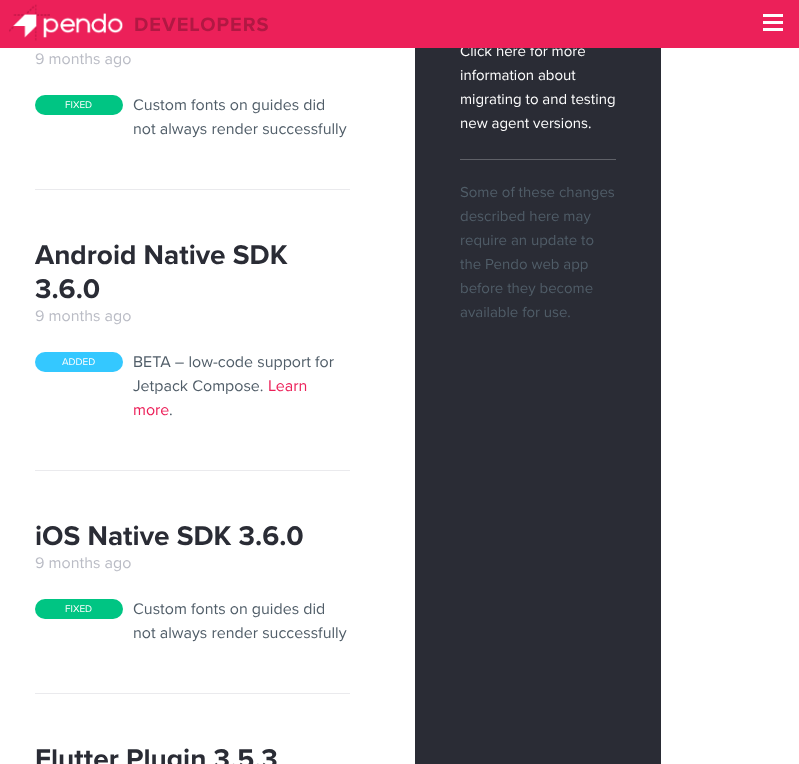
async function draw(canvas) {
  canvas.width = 799
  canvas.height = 764
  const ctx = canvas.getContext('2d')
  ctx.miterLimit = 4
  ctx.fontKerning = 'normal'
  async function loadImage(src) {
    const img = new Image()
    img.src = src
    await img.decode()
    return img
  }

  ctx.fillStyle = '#fff'
  ctx.fillRect(0, 0, 799, 764)
  ctx.fillStyle = '#2a2c35'
  ctx.fillRect(415, 48, 246, 716)
  ctx.font = '15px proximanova'
  ctx.fillStyle = '#fefefe'
  ctx.fillText('Click here for more', 460, 56)
  ctx.fillStyle = '#ec2059'
  ctx.fillRect(0, 0, 799, 48)
  ctx.drawImage(await loadImage('image0.png'), 9, 4, 114, 37)
  ctx.letterSpacing = '1px'
  ctx.font = 'bold 20px proximanova'
  ctx.fillStyle = '#b11843'
  ctx.fillText('DEVELOPERS', 134, 31)
  ctx.fillStyle = '#fefefe'
  ctx.fillRect(763, 28, 20, 3)
  ctx.fillRect(763, 21, 20, 3)
  ctx.fillRect(763, 14, 20, 3)
  ctx.letterSpacing = '0px'
  ctx.font = '16px proximanova'
  ctx.fillStyle = '#babcc5'
  ctx.fillText('9 months ago', 35, 64)
  ctx.fillStyle = '#eaeaed'
  ctx.fillRect(35, 189, 315, 1)
  ctx.fillStyle = '#00c583'
  ctx.beginPath()
  ctx.roundRect(35, 95, 88, 20, 10)
  ctx.fill()
  ctx.font = '10px proximanova'
  ctx.fillStyle = '#fefefe'
  ctx.fillText('FIXED', 65, 108)
  ctx.font = '16px proximanova'
  ctx.fillStyle = '#505d68'
  ctx.fillText('Custom fonts on guides did', 133, 110)
  ctx.fillText('not always render successfully', 133, 134)
  ctx.font = 'bold 28px proximanova'
  ctx.fillStyle = '#2a2c35'
  ctx.fillText('Android Native SDK', 35, 264)
  ctx.fillText('3.6.0', 35, 298)
  ctx.font = '16px proximanova'
  ctx.fillStyle = '#babcc5'
  ctx.fillText('9 months ago', 35, 321)
  ctx.fillStyle = '#eaeaed'
  ctx.fillRect(35, 470, 315, 1)
  ctx.fillStyle = '#34c8ff'
  ctx.beginPath()
  ctx.roundRect(35, 352, 88, 20, 10)
  ctx.fill()
  ctx.font = '10px proximanova'
  ctx.fillStyle = '#fefefe'
  ctx.fillText('ADDED', 62, 365)
  ctx.font = '16px proximanova'
  ctx.fillStyle = '#505d68'
  ctx.fillText('BETA – low-code support for', 133, 367)
  ctx.fillText('Jetpack Compose.', 133, 391)
  ctx.fillStyle = '#ec2059'
  ctx.fillText('Learn', 268, 391)
  ctx.fillText('more', 133, 415)
  ctx.fillStyle = '#505d68'
  ctx.fillText('.', 169, 415)
  ctx.font = 'bold 28px proximanova'
  ctx.fillStyle = '#2a2c35'
  ctx.fillText('iOS Native SDK 3.6.0', 35, 545)
  ctx.font = '16px proximanova'
  ctx.fillStyle = '#babcc5'
  ctx.fillText('9 months ago', 35, 568)
  ctx.fillStyle = '#eaeaed'
  ctx.fillRect(35, 693, 315, 1)
  ctx.fillStyle = '#00c583'
  ctx.beginPath()
  ctx.roundRect(35, 599, 88, 20, 10)
  ctx.fill()
  ctx.font = '10px proximanova'
  ctx.fillStyle = '#fefefe'
  ctx.fillText('FIXED', 65, 612)
  ctx.font = '16px proximanova'
  ctx.fillStyle = '#505d68'
  ctx.fillText('Custom fonts on guides did', 133, 614)
  ctx.fillText('not always render successfully', 133, 638)
  ctx.font = 'bold 28px proximanova'
  ctx.fillStyle = '#2a2c35'
  ctx.fillText('Flutter Plugin 3.5.3', 35, 768)
  ctx.font = '15px proximanova'
  ctx.fillStyle = '#fefefe'
  ctx.fillText('information about', 460, 80)
  ctx.fillText('migrating to and testing', 460, 104)
  ctx.fillText('new agent versions.', 460, 128)
  ctx.fillStyle = '#5f6168'
  ctx.fillRect(460, 159, 156, 1)
  ctx.fillStyle = '#505d68'
  ctx.fillText('Some of these changes', 460, 197)
  ctx.fillText('described here may', 460, 221)
  ctx.fillText('require an update to', 460, 245)
  ctx.fillText('the Pendo web app', 460, 269)
  ctx.fillText('before they become', 460, 293)
  ctx.fillText('available for use.', 460, 317)
}

draw(document.querySelector('canvas'))
